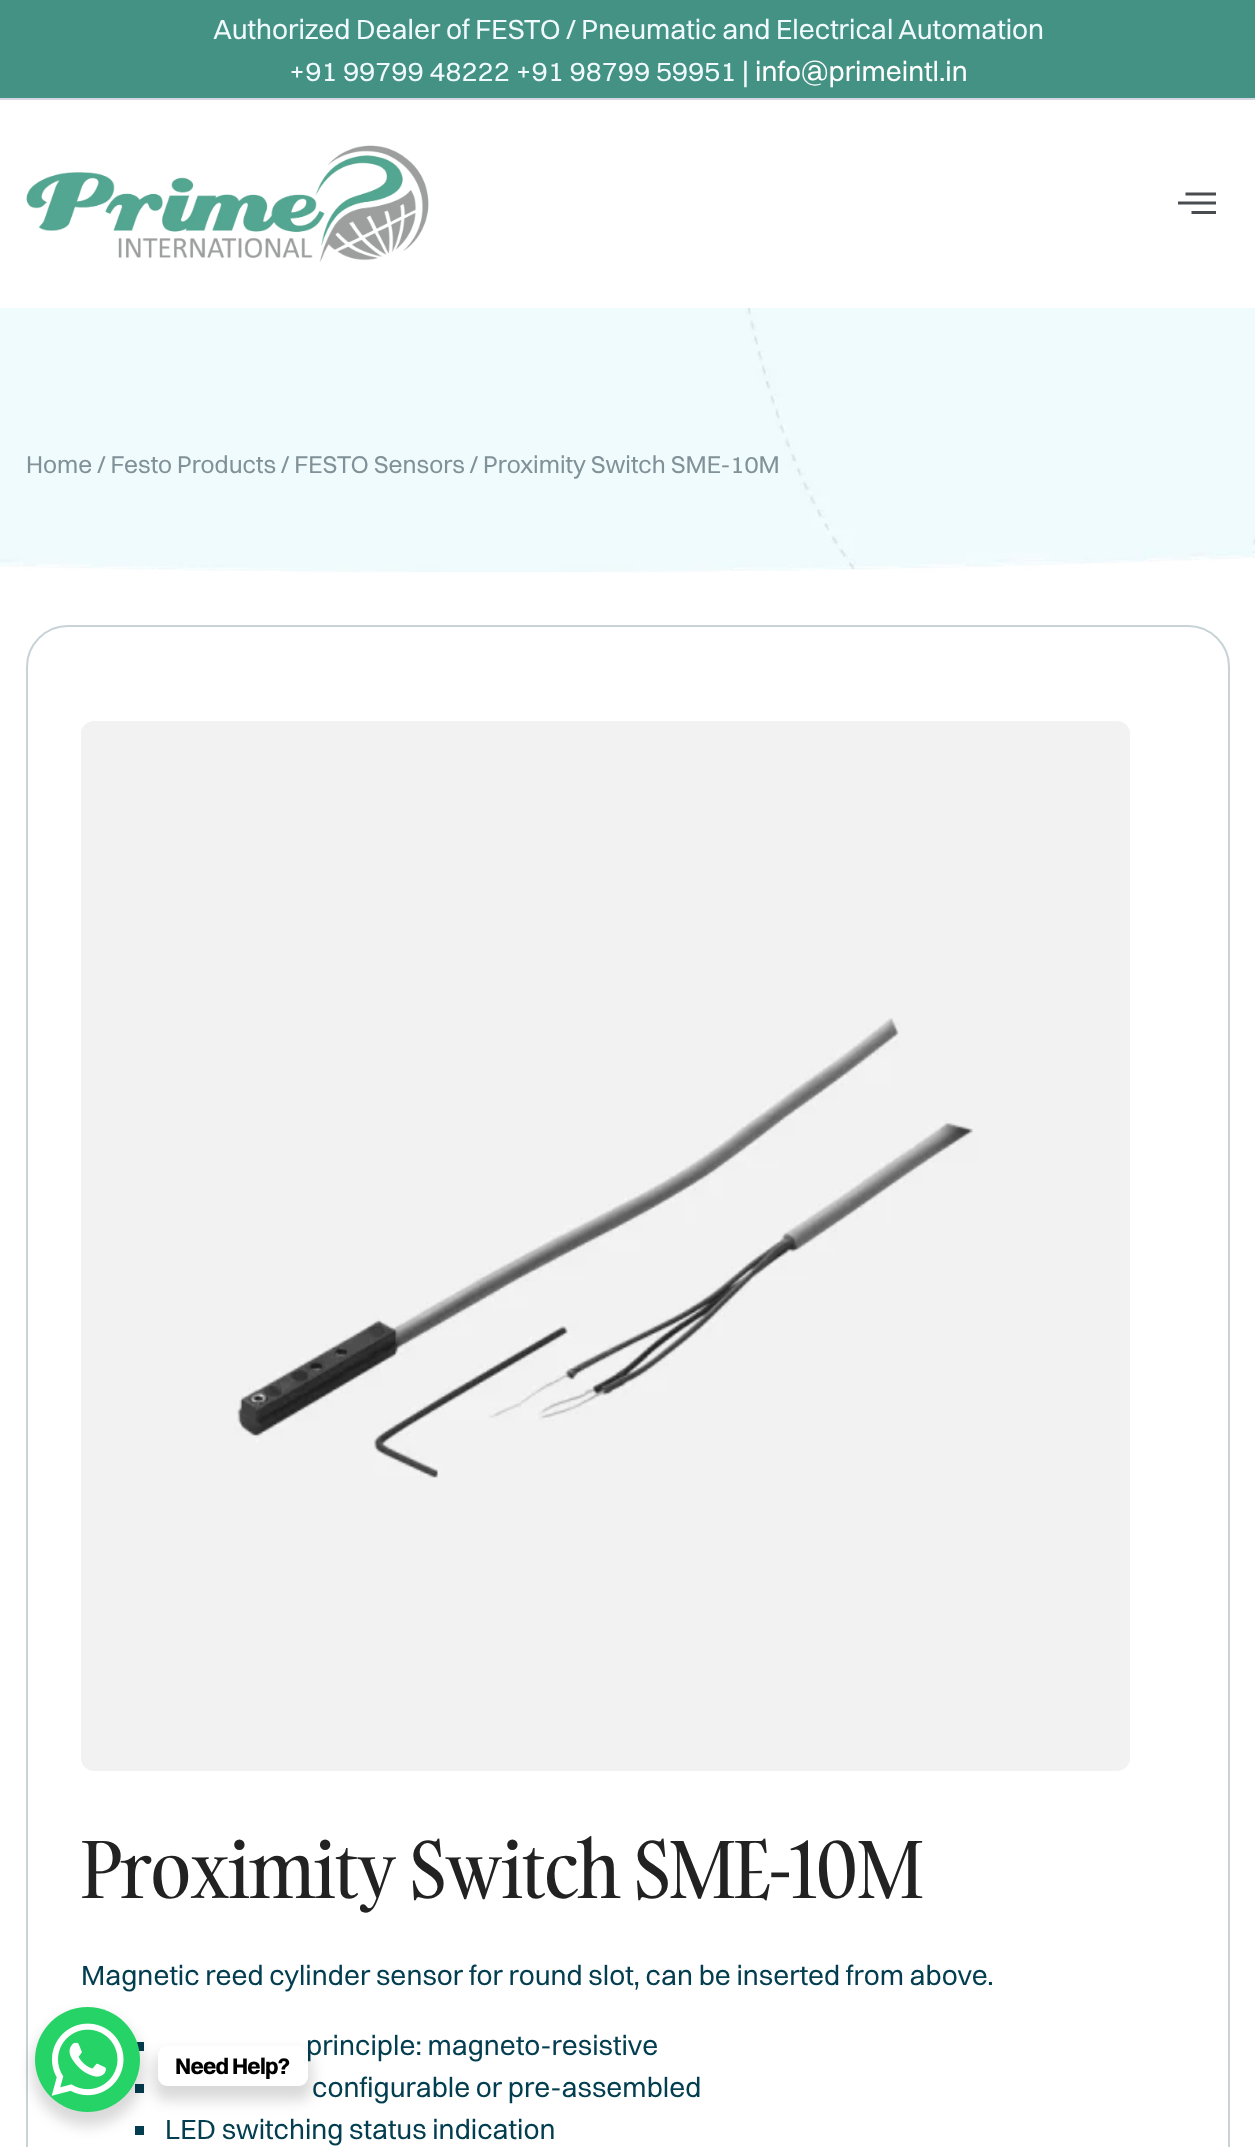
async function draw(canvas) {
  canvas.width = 1255
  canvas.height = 2147
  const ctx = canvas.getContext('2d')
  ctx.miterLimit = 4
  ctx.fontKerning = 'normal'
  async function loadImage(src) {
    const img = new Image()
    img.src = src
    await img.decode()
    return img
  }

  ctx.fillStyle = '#fff'
  ctx.fillRect(0, 0, 1255, 2147)
  ctx.fillStyle = '#449284'
  ctx.fillRect(0, 0, 1255, 98)
  ctx.fillStyle = '#d4d6e3'
  ctx.fillRect(0, 98, 1255, 2)
  ctx.font = '28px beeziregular'
  ctx.fillStyle = '#f0fafd'
  ctx.fillText('Authorized Dealer of FESTO / Pneumatic and Electrical Automation', 213, 39)
  ctx.fillText('+91 99799 48222 +91 98799 59951 |', 289, 81)
  ctx.fillStyle = '#fff'
  ctx.fillText('info@primeintl.in', 755, 81)
  ctx.drawImage(await loadImage('image0.png'), 26, 145, 403, 117)
  ctx.fillStyle = '#494c4f'
  ctx.beginPath()
  ctx.moveTo(1178, 204.5)
  ctx.lineTo(1216, 204.5)
  ctx.lineTo(1216, 201.5)
  ctx.lineTo(1178, 201.5)
  ctx.closePath()
  ctx.moveTo(1191.5, 214)
  ctx.lineTo(1216, 214)
  ctx.lineTo(1216, 211)
  ctx.lineTo(1191.5, 211)
  ctx.closePath()
  ctx.moveTo(1185.5, 192.5)
  ctx.lineTo(1185.5, 195.5)
  ctx.lineTo(1216, 195.5)
  ctx.lineTo(1216, 192.5)
  ctx.closePath()
  ctx.fill()
  ctx.drawImage(await loadImage('image1.png'), 0, 308, 1255, 265)
  ctx.font = '24.5px beeziregular'
  ctx.fillStyle = '#809197'
  ctx.fillText('Home / Festo Products / FESTO Sensors / Proximity Switch SME-10M', 26, 473)
  ctx.beginPath()
  ctx.roundRect(27, 626, 1202, 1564, 41)
  ctx.strokeStyle = '#c8d3d7'
  ctx.lineWidth = 2
  ctx.stroke()
  ctx.drawImage(await loadImage('image2.png'), 81, 721, 1049, 1050)
  ctx.letterSpacing = '-1.2px'
  ctx.font = '77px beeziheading'
  ctx.fillStyle = '#222'
  ctx.fillText('Proximity Switch SME-10M', 81, 1898)
  ctx.letterSpacing = '0px'
  ctx.font = '28px beeziregular'
  ctx.fillStyle = '#033d50'
  ctx.fillText('Magnetic reed cylinder sensor for round slot, can be inserted from above.', 81, 1985)
  ctx.fillRect(137, 2042, 7, 9)
  ctx.fillText('principle: magneto-resistive', 306, 2055)
  ctx.fillRect(135, 2084, 9, 9)
  ctx.fillText('configurable or pre-assembled', 312, 2097)
  ctx.fillRect(135, 2126, 9, 9)
  ctx.fillText('LED switching status indication', 165, 2139)
  ctx.fillStyle = '#00000026'
  ctx.filter = 'blur(7px)'
  ctx.beginPath()
  ctx.roundRect(32, 2014, 112, 112, 56)
  ctx.fill()
  ctx.filter = 'none'
  ctx.fillStyle = '#25d366'
  ctx.beginPath()
  ctx.arc(87.5, 2059.5, 52.5, 0, 2 * Math.PI)
  ctx.fill()
  ctx.drawImage(await loadImage('image3.png'), 51, 2023, 73, 73)
  ctx.fillStyle = '#00000026'
  ctx.filter = 'blur(7px)'
  ctx.beginPath()
  ctx.roundRect(154, 2053, 158, 47, 12)
  ctx.fill()
  ctx.filter = 'none'
  ctx.fillStyle = '#fff'
  ctx.beginPath()
  ctx.roundRect(158, 2046, 150, 40, 9)
  ctx.fill()
  ctx.letterSpacing = '-0.75px'
  ctx.font = 'bold 22.75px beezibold'
  ctx.fillStyle = '#000'
  ctx.fillText('Need Help?', 175, 2074)
}

draw(document.querySelector('canvas'))
